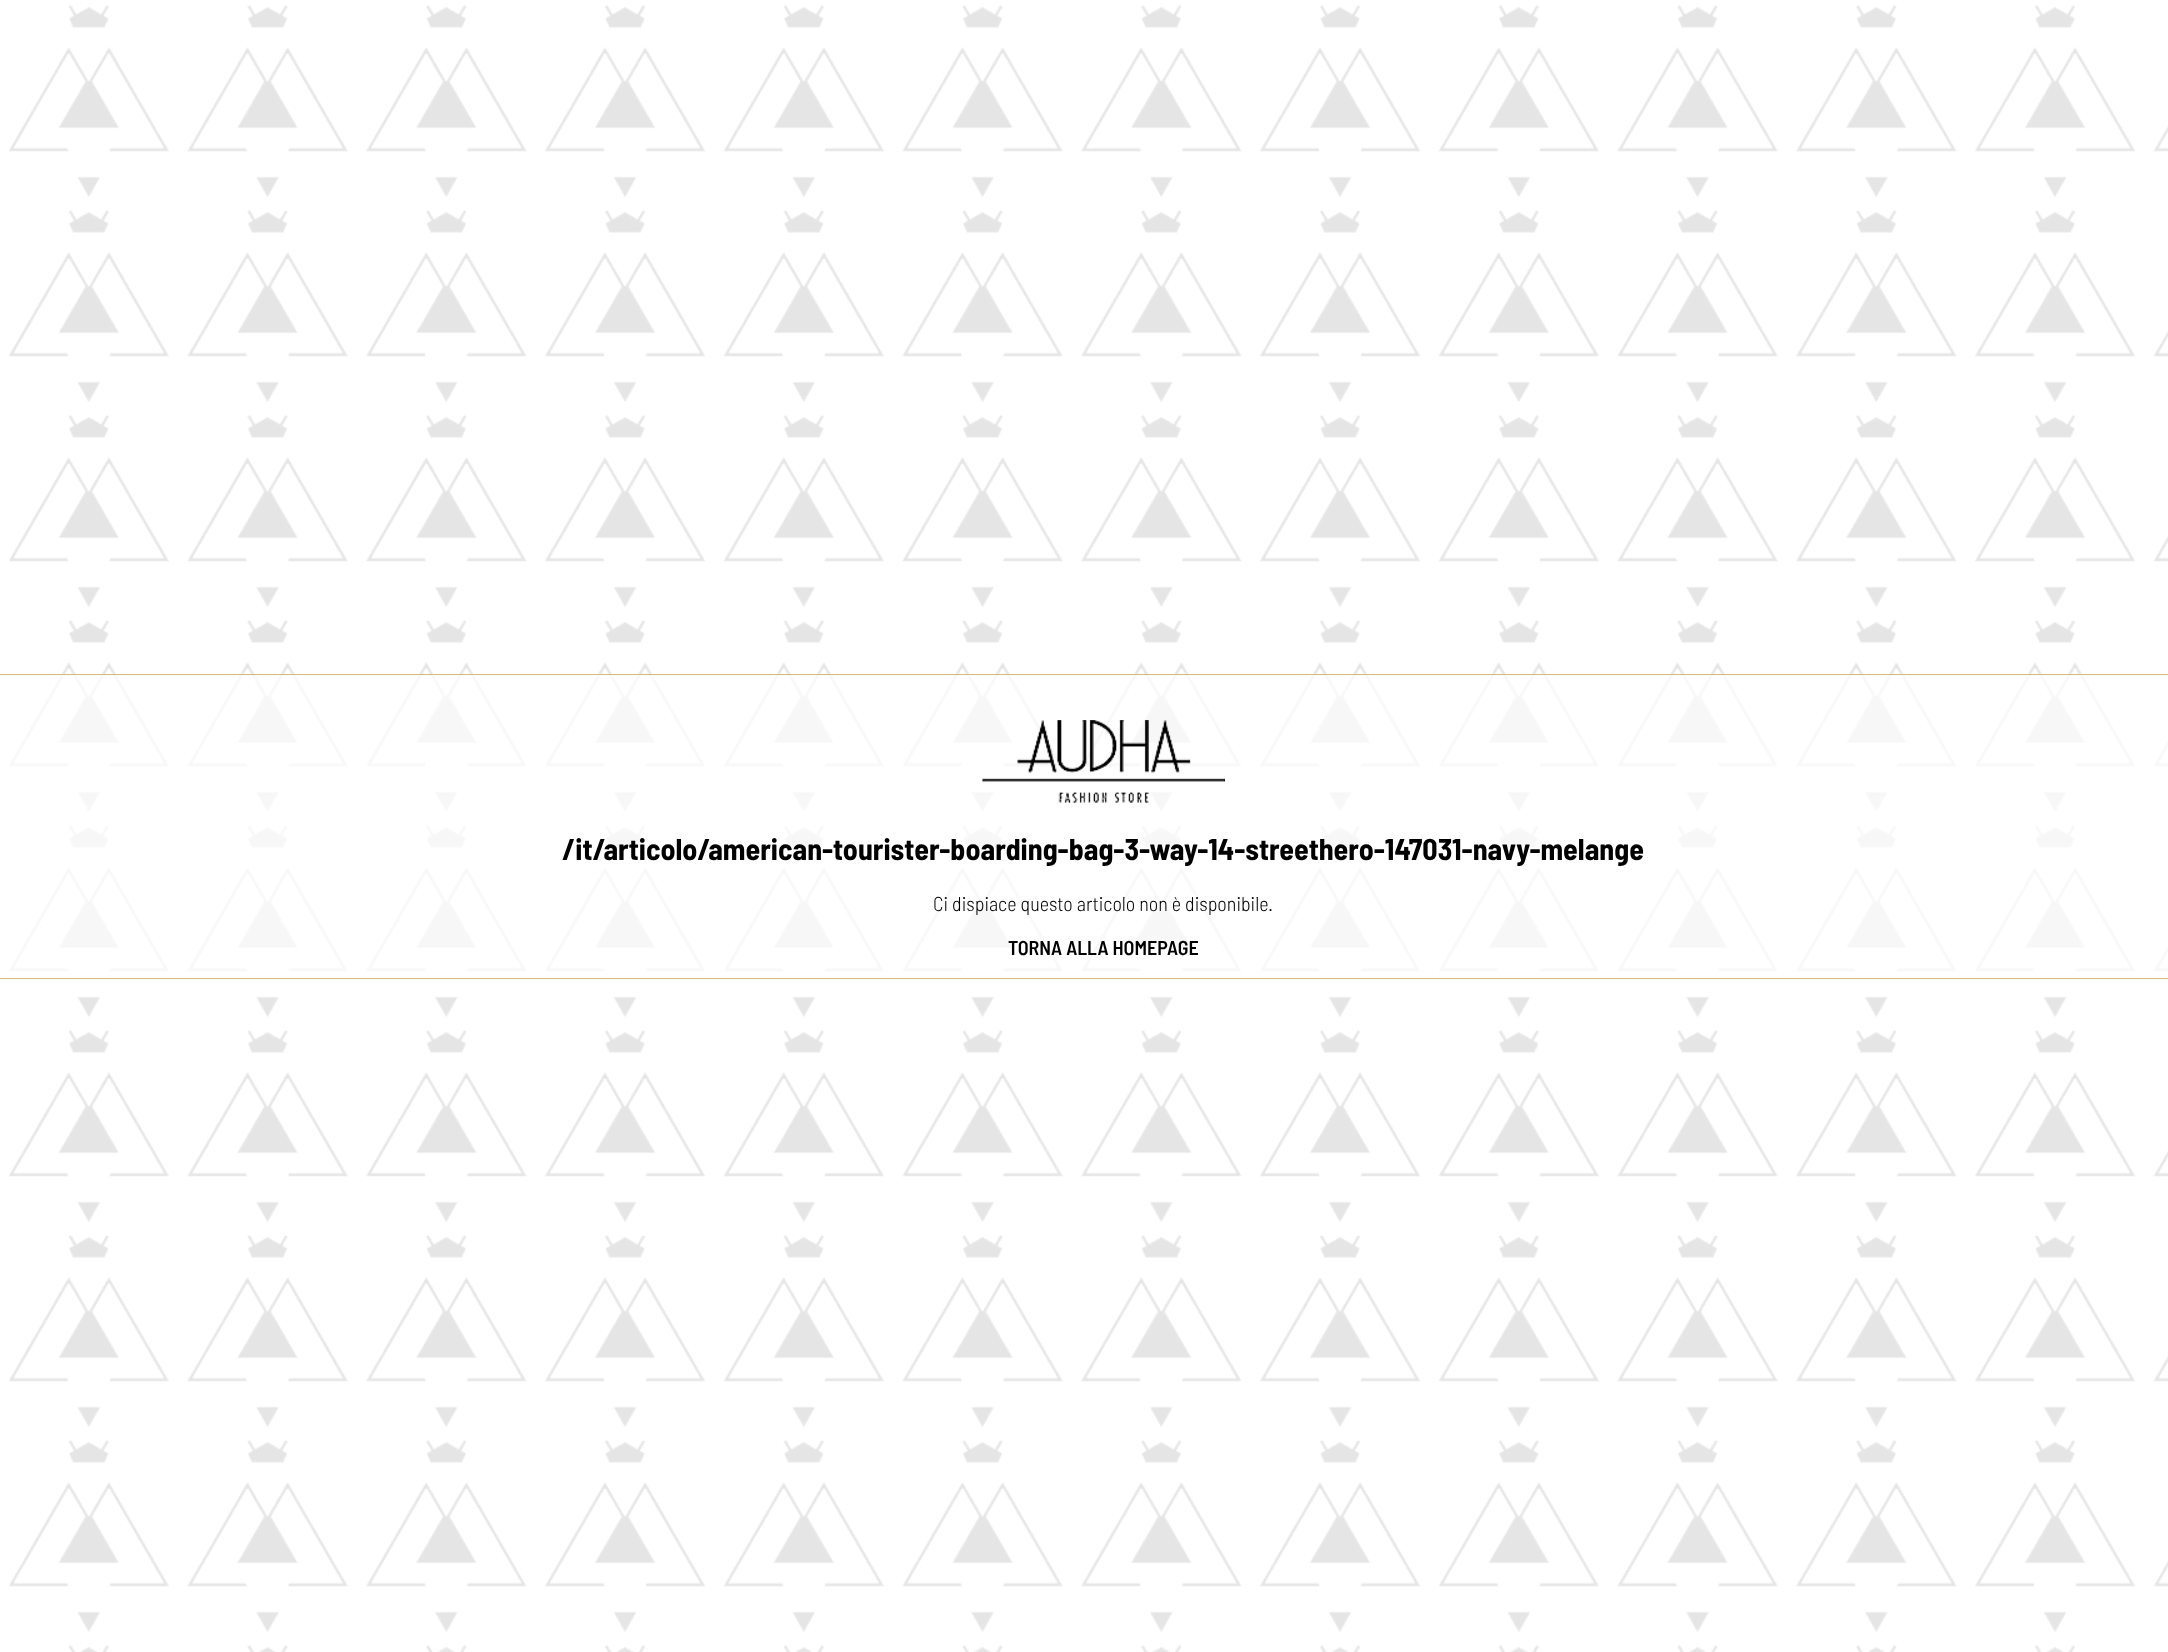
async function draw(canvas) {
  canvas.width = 2168
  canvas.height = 1652
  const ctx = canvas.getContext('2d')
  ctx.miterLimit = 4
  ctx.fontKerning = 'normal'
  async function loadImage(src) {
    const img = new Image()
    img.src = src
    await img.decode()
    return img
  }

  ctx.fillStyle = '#fff'
  ctx.fillRect(0, 0, 2168, 1652)
  ctx.drawImage(await loadImage('image0.png'), 9, 5, 2159, 1647)
  ctx.fillStyle = '#ffffffb3'
  ctx.fillRect(9, 675, 2159, 297)
  ctx.fillStyle = '#d6bb7b'
  ctx.fillRect(0, 674, 2168, 1)
  ctx.fillRect(0, 978, 2168, 1)
  ctx.drawImage(await loadImage('image1.png'), 982, 720, 243, 83)
  ctx.font = 'bold 30px Barlow Semi Condensed'
  ctx.fillStyle = '#000'
  ctx.fillText('/it/articolo/american-tourister-boarding-bag-3-way-14-streethero-147031-navy-melange', 562, 860)
  ctx.font = '300 20px Barlow Semi Condensed'
  ctx.fillText('Ci dispiace questo articolo non è disponibile.', 933, 911)
  ctx.font = '600 20px Barlow Semi Condensed'
  ctx.fillText('TORNA ALLA HOMEPAGE', 1008, 955)
}

draw(document.querySelector('canvas'))
